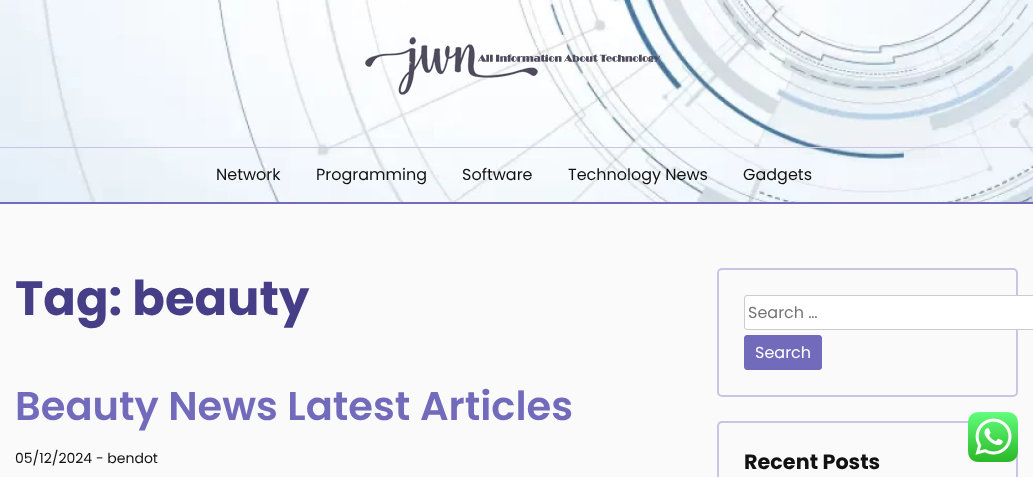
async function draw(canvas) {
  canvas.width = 1033
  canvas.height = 477
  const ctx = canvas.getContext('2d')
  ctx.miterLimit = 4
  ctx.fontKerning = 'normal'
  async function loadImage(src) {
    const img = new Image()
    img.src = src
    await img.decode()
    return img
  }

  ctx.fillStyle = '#fafafa'
  ctx.fillRect(0, 0, 1033, 477)
  ctx.drawImage(await loadImage('image0.png'), 0, 0, 1033, 202)
  ctx.drawImage(await loadImage('image1.png'), 365, 37, 295, 58)
  ctx.fillStyle = '#c8c4e5'
  ctx.fillRect(0, 147, 1033, 1)
  ctx.fillStyle = '#726abb'
  ctx.fillRect(0, 202, 1033, 2)
  ctx.font = '16px Poppins'
  ctx.fillStyle = '#121212'
  ctx.fillText('Network', 216, 180)
  ctx.fillText('Programming', 316, 180)
  ctx.fillText('Software', 462, 180)
  ctx.fillText('Technology News', 568, 180)
  ctx.fillText('Gadgets', 743, 180)
  ctx.font = 'bold 48px Poppins'
  ctx.fillStyle = '#463f87'
  ctx.fillText('Tag: beauty', 15, 315)
  ctx.font = '600 40px Poppins'
  ctx.fillStyle = '#726abb'
  ctx.fillText('Beauty News Latest Articles', 15, 420)
  ctx.font = '14px Poppins'
  ctx.fillStyle = '#121212'
  ctx.fillText('05/12/2024 - bendot', 15, 463)
  ctx.beginPath()
  ctx.roundRect(718, 269, 299, 127, 4)
  ctx.strokeStyle = '#c8c4e5'
  ctx.lineWidth = 2
  ctx.stroke()
  ctx.fillStyle = '#fff'
  ctx.beginPath()
  ctx.roundRect(744.5, 295.5, 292, 34, 2.5)
  ctx.fill()
  ctx.strokeStyle = '#ccc'
  ctx.lineWidth = 1
  ctx.stroke()
  ctx.font = '16px Poppins'
  ctx.fillStyle = '#757575'
  ctx.fillText('Search …', 748, 318)
  ctx.fillStyle = '#726abb'
  ctx.beginPath()
  ctx.roundRect(744.5, 335.5, 77, 34, 2.5)
  ctx.fill()
  ctx.strokeStyle = '#726abb'
  ctx.stroke()
  ctx.fillStyle = '#fff'
  ctx.fillText('Search', 755, 358)
  ctx.beginPath()
  ctx.roundRect(718, 422, 299, 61, 4)
  ctx.strokeStyle = '#c8c4e5'
  ctx.lineWidth = 2
  ctx.stroke()
  ctx.font = 'bold 20.75px Poppins'
  ctx.fillStyle = '#121212'
  ctx.fillText('Recent Posts', 744, 469)
  ctx.drawImage(await loadImage('image2.png'), 968, 412, 50, 50)
}

draw(document.querySelector('canvas'))
